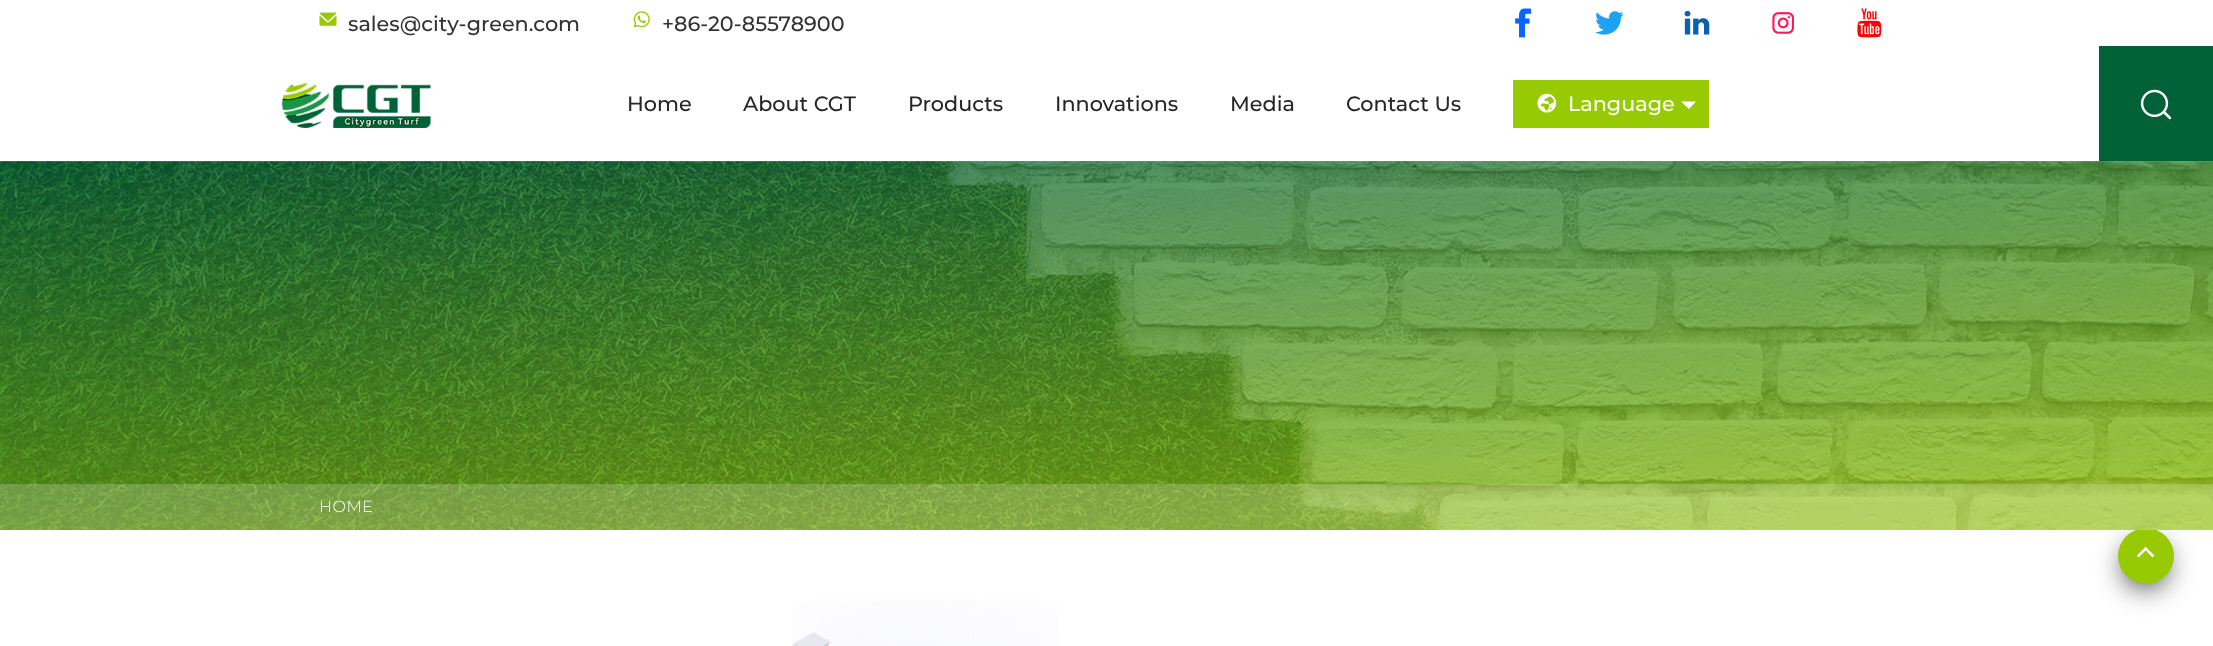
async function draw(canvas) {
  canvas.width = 2213
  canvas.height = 646
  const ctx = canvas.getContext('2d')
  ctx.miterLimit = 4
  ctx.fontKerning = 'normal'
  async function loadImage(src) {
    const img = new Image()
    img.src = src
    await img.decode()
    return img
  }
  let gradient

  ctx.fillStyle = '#fff'
  ctx.fillRect(0, 0, 2213, 646)
  ctx.drawImage(await loadImage('image0.png'), 319, 12, 18, 14)
  ctx.font = '500 20.75px Montserrat'
  ctx.fillStyle = '#333'
  ctx.fillText('sales@city-green.com', 348, 31)
  ctx.drawImage(await loadImage('image1.png'), 633, 11, 17, 17)
  ctx.fillText('+86-20-85578900', 662, 31)
  ctx.drawImage(await loadImage('image2.png'), 1515, 8, 17, 30)
  ctx.drawImage(await loadImage('image3.png'), 1595, 11, 29, 24)
  ctx.drawImage(await loadImage('image4.png'), 1684, 10, 26, 25)
  ctx.drawImage(await loadImage('image5.png'), 1772, 12, 22, 22)
  ctx.drawImage(await loadImage('image6.png'), 1857, 8, 25, 30)
  ctx.drawImage(await loadImage('image7.png'), 282, 83, 149, 45)
  ctx.font = '500 20.75px "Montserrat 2"'
  ctx.fillStyle = '#262626'
  ctx.fillText('Home', 627, 111)
  ctx.fillText('About CGT', 743, 111)
  ctx.fillText('Products', 908, 111)
  ctx.fillText('Innovations', 1055, 111)
  ctx.fillText('Media', 1230, 111)
  ctx.fillText('Contact Us', 1346, 111)
  ctx.fillStyle = '#97ca03'
  ctx.fillRect(1513, 80, 196, 48)
  ctx.drawImage(await loadImage('image8.png'), 1537, 93, 20, 20)
  ctx.fillStyle = '#fff'
  ctx.fillText('Language', 1568, 111)
  ctx.beginPath()
  ctx.moveTo(1681, 101.5)
  ctx.lineTo(1696, 101.5)
  ctx.lineTo(1689, 109)
  ctx.closePath()
  ctx.fill()
  ctx.fillStyle = '#016237'
  ctx.fillRect(2099, 46, 114, 115)
  ctx.drawImage(await loadImage('image9.png'), 2140, 89, 32, 31)
  ctx.fillStyle = '#1b1b1b'
  ctx.filter = 'blur(14.5px)'
  ctx.beginPath()
  ctx.roundRect(2125, 545, 41, 41, 20.5)
  ctx.fill()
  ctx.filter = 'none'
  ctx.fillStyle = '#97ca03'
  ctx.beginPath()
  ctx.arc(2146, 556, 28, 0, 2 * Math.PI)
  ctx.fill()
  ctx.drawImage(await loadImage('image10.png'), 0, 161, 2213, 369)
  gradient = ctx.createLinearGradient(1107, 161, 1107, 530)
  gradient.addColorStop(0, '#01623780')
  gradient.addColorStop(1, '#97ca0380')
  ctx.fillStyle = gradient
  ctx.fillRect(0, 161, 2213, 369)
  ctx.fillStyle = '#ffffff33'
  ctx.fillRect(0, 484, 2213, 46)
  ctx.letterSpacing = '0.5px'
  ctx.font = '300 16px Montserrat'
  ctx.fillStyle = '#fff'
  ctx.fillText('HOME', 319, 512)
  ctx.drawImage(await loadImage('image11.png'), 792, 599, 267, 47)
  ctx.beginPath()
  ctx.moveTo(2138.5, 557.5)
  ctx.lineTo(2137, 555.5)
  ctx.lineTo(2145.5, 547)
  ctx.lineTo(2147.5, 548.5)
  ctx.closePath()
  ctx.fill()
  ctx.beginPath()
  ctx.moveTo(2152.5, 557.5)
  ctx.lineTo(2144, 548.5)
  ctx.lineTo(2145.5, 547)
  ctx.lineTo(2154.5, 555.5)
  ctx.closePath()
  ctx.fill()
}

draw(document.querySelector('canvas'))
